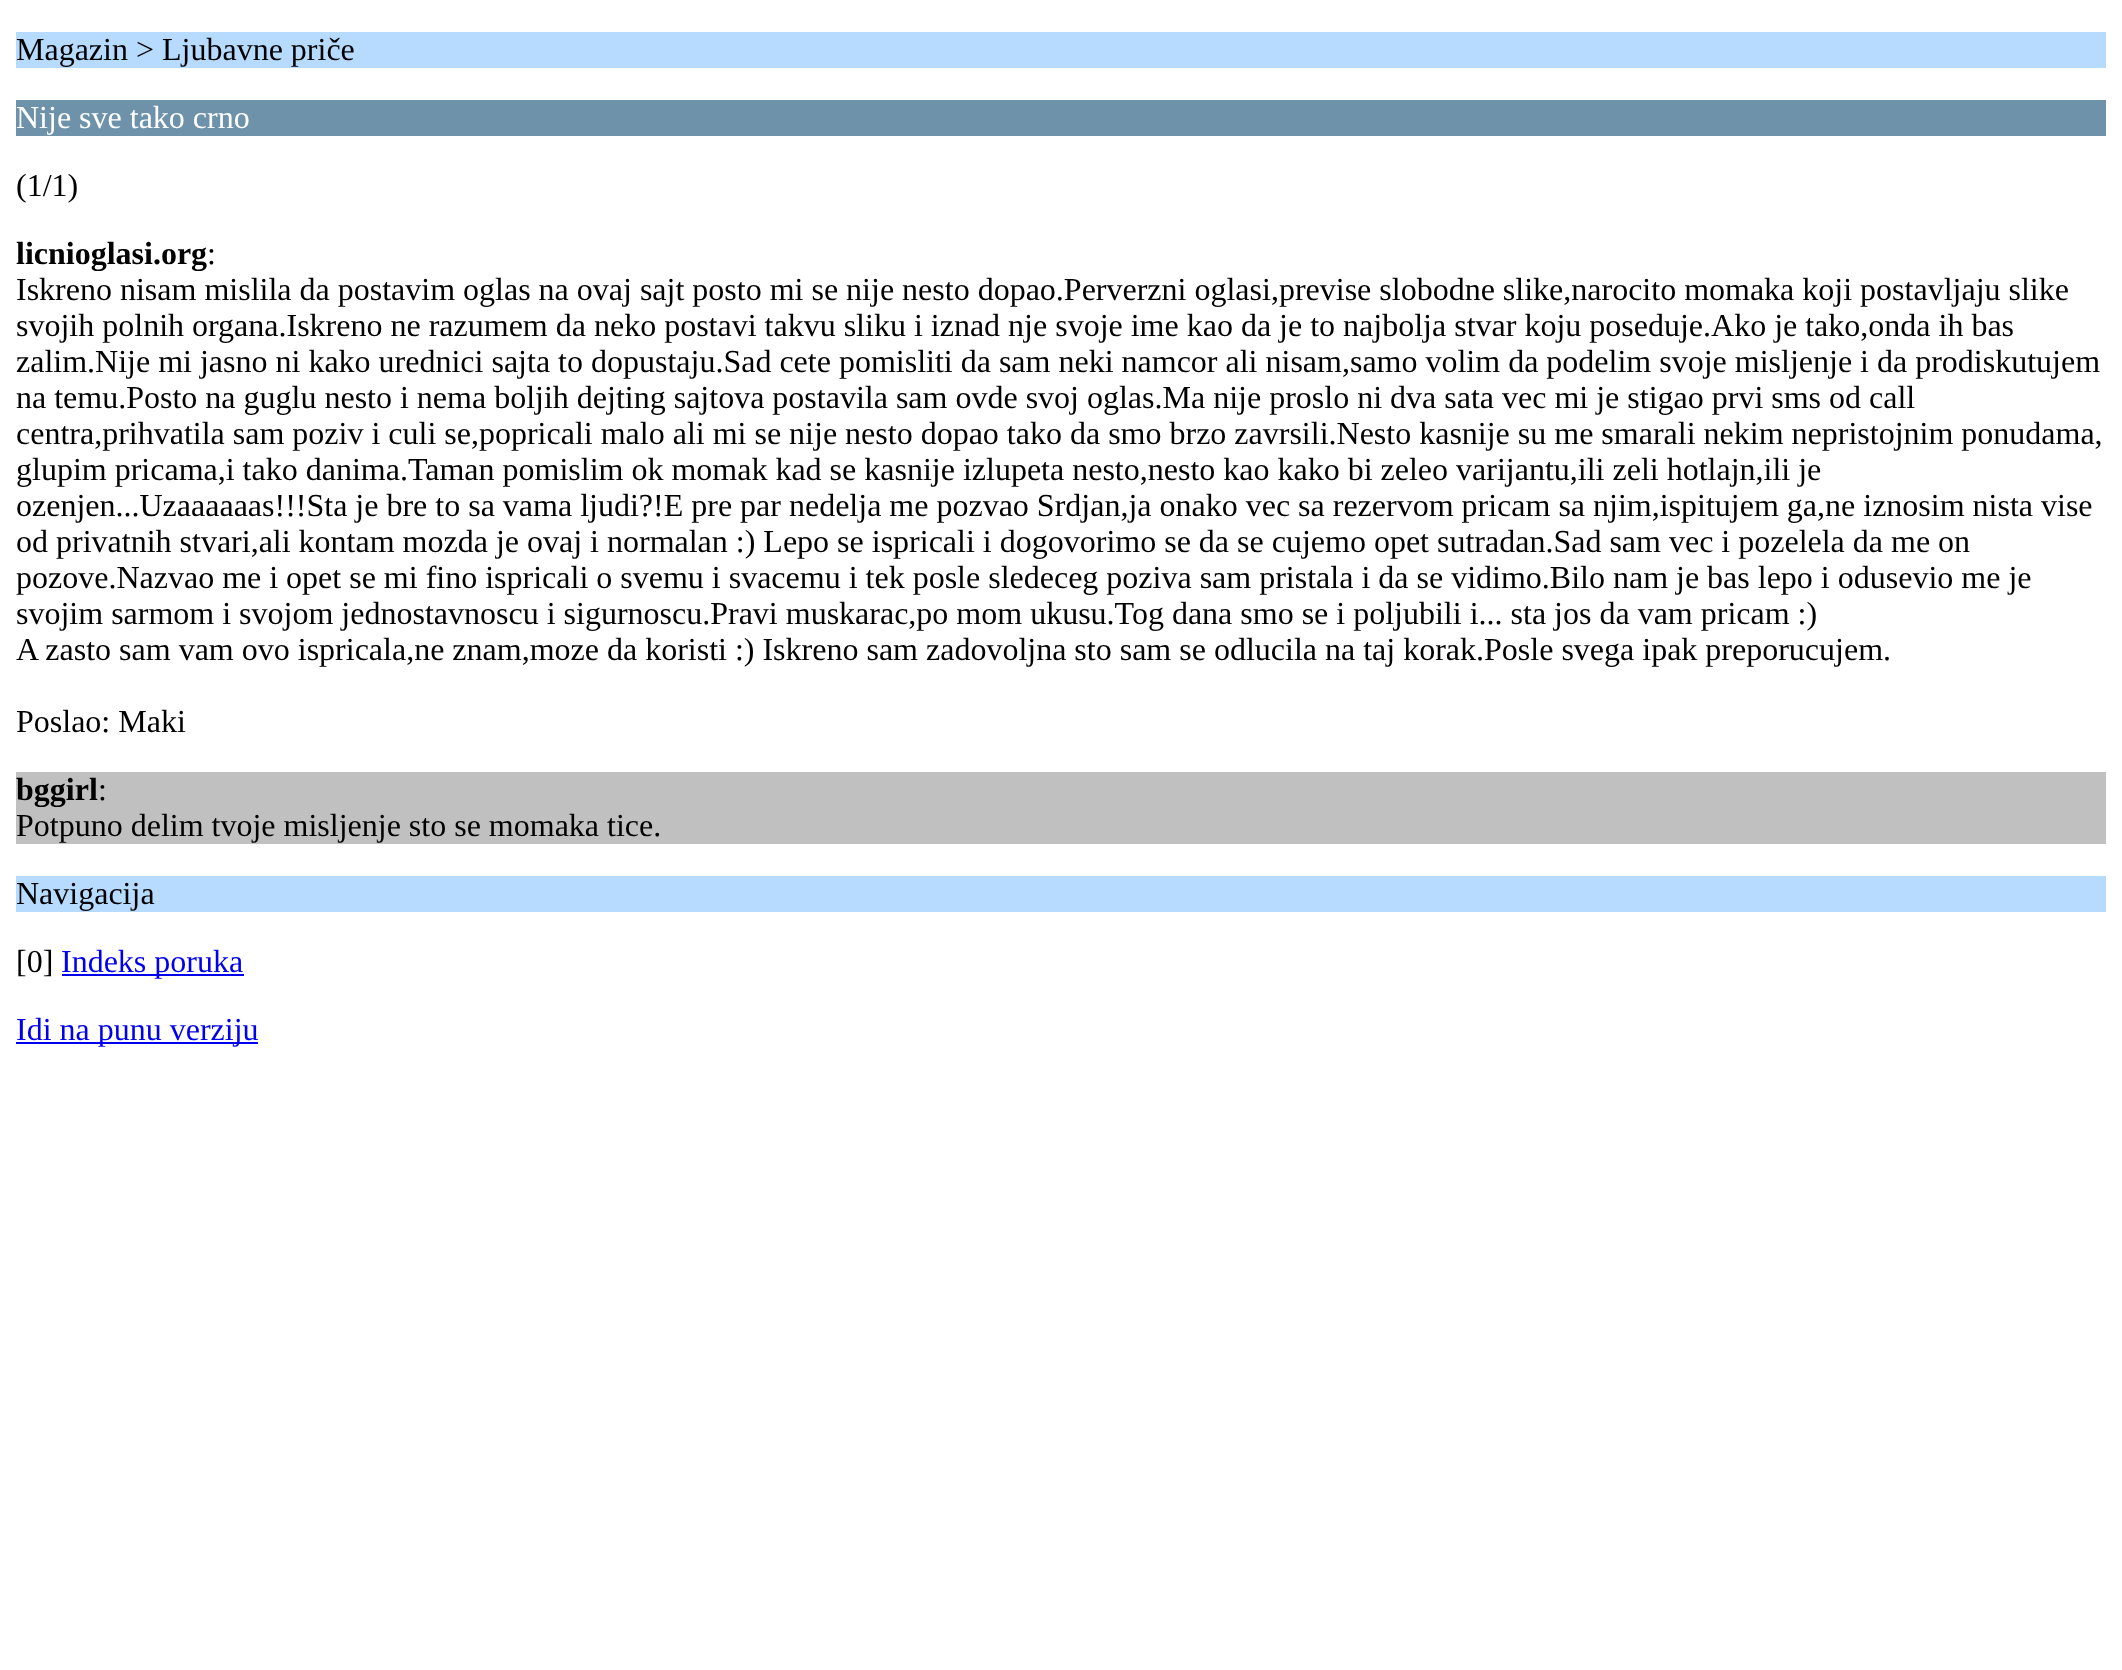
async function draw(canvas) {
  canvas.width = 2122
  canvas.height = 1670
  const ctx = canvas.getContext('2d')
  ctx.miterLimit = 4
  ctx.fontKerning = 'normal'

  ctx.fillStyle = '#fff'
  ctx.fillRect(0, 0, 2122, 1670)
  ctx.fillStyle = '#b6dbff'
  ctx.fillRect(16, 32, 2090, 36)
  ctx.font = '32px Liberation Serif'
  ctx.fillStyle = '#000'
  ctx.fillText('Magazin > Ljubavne priče', 16, 60)
  ctx.fillStyle = '#6d92aa'
  ctx.fillRect(16, 100, 2090, 36)
  ctx.fillStyle = '#fff'
  ctx.fillText('Nije sve tako crno', 16, 128)
  ctx.fillStyle = '#000'
  ctx.fillText('(1/1)', 16, 196)
  ctx.font = 'bold 32px Liberation Serif'
  ctx.fillText('licnioglasi.org', 16, 264)
  ctx.font = '32px Liberation Serif'
  ctx.fillText(':', 207, 264)
  ctx.fillText('Iskreno nisam mislila da postavim oglas na ovaj sajt posto mi se nije nesto dopao.Perverzni oglasi,previse slobodne slike,narocito momaka koji postavljaju slike', 16, 300)
  ctx.fillText('svojih polnih organa.Iskreno ne razumem da neko postavi takvu sliku i iznad nje svoje ime kao da je to najbolja stvar koju poseduje.Ako je tako,onda ih bas', 16, 336)
  ctx.fillText('zalim.Nije mi jasno ni kako urednici sajta to dopustaju.Sad cete pomisliti da sam neki namcor ali nisam,samo volim da podelim svoje misljenje i da prodiskutujem', 16, 372)
  ctx.fillText('na temu.Posto na guglu nesto i nema boljih dejting sajtova postavila sam ovde svoj oglas.Ma nije proslo ni dva sata vec mi je stigao prvi sms od call', 16, 408)
  ctx.fillText('centra,prihvatila sam poziv i culi se,popricali malo ali mi se nije nesto dopao tako da smo brzo zavrsili.Nesto kasnije su me smarali nekim nepristojnim ponudama,', 16, 444)
  ctx.fillText('glupim pricama,i tako danima.Taman pomislim ok momak kad se kasnije izlupeta nesto,nesto kao kako bi zeleo varijantu,ili zeli hotlajn,ili je', 16, 480)
  ctx.fillText('ozenjen...Uzaaaaaas!!!Sta je bre to sa vama ljudi?!E pre par nedelja me pozvao Srdjan,ja onako vec sa rezervom pricam sa njim,ispitujem ga,ne iznosim nista vise', 16, 516)
  ctx.fillText('od privatnih stvari,ali kontam mozda je ovaj i normalan :) Lepo se ispricali i dogovorimo se da se cujemo opet sutradan.Sad sam vec i pozelela da me on', 16, 552)
  ctx.fillText('pozove.Nazvao me i opet se mi fino ispricali o svemu i svacemu i tek posle sledeceg poziva sam pristala i da se vidimo.Bilo nam je bas lepo i odusevio me je', 16, 588)
  ctx.fillText('svojim sarmom i svojom jednostavnoscu i sigurnoscu.Pravi muskarac,po mom ukusu.Tog dana smo se i poljubili i... sta jos da vam pricam :)', 16, 624)
  ctx.fillText('A zasto sam vam ovo ispricala,ne znam,moze da koristi :) Iskreno sam zadovoljna sto sam se odlucila na taj korak.Posle svega ipak preporucujem.', 16, 660)
  ctx.fillText('Poslao: Maki', 16, 732)
  ctx.fillStyle = '#c0c0c0'
  ctx.fillRect(16, 772, 2090, 72)
  ctx.font = 'bold 32px Liberation Serif'
  ctx.fillStyle = '#000'
  ctx.fillText('bggirl', 16, 800)
  ctx.font = '32px Liberation Serif'
  ctx.fillText(':', 98, 800)
  ctx.fillText('Potpuno delim tvoje misljenje sto se momaka tice.', 16, 836)
  ctx.fillStyle = '#b6dbff'
  ctx.fillRect(16, 876, 2090, 36)
  ctx.fillStyle = '#000'
  ctx.fillText('Navigacija', 16, 904)
  ctx.fillText('[0]', 16, 972)
  ctx.fillStyle = '#00e'
  ctx.fillRect(62, 974, 182, 2)
  ctx.fillText('Indeks poruka', 61, 972)
  ctx.fillRect(16, 1042, 242, 2)
  ctx.fillText('Idi na punu verziju', 16, 1040)
}

draw(document.querySelector('canvas'))
